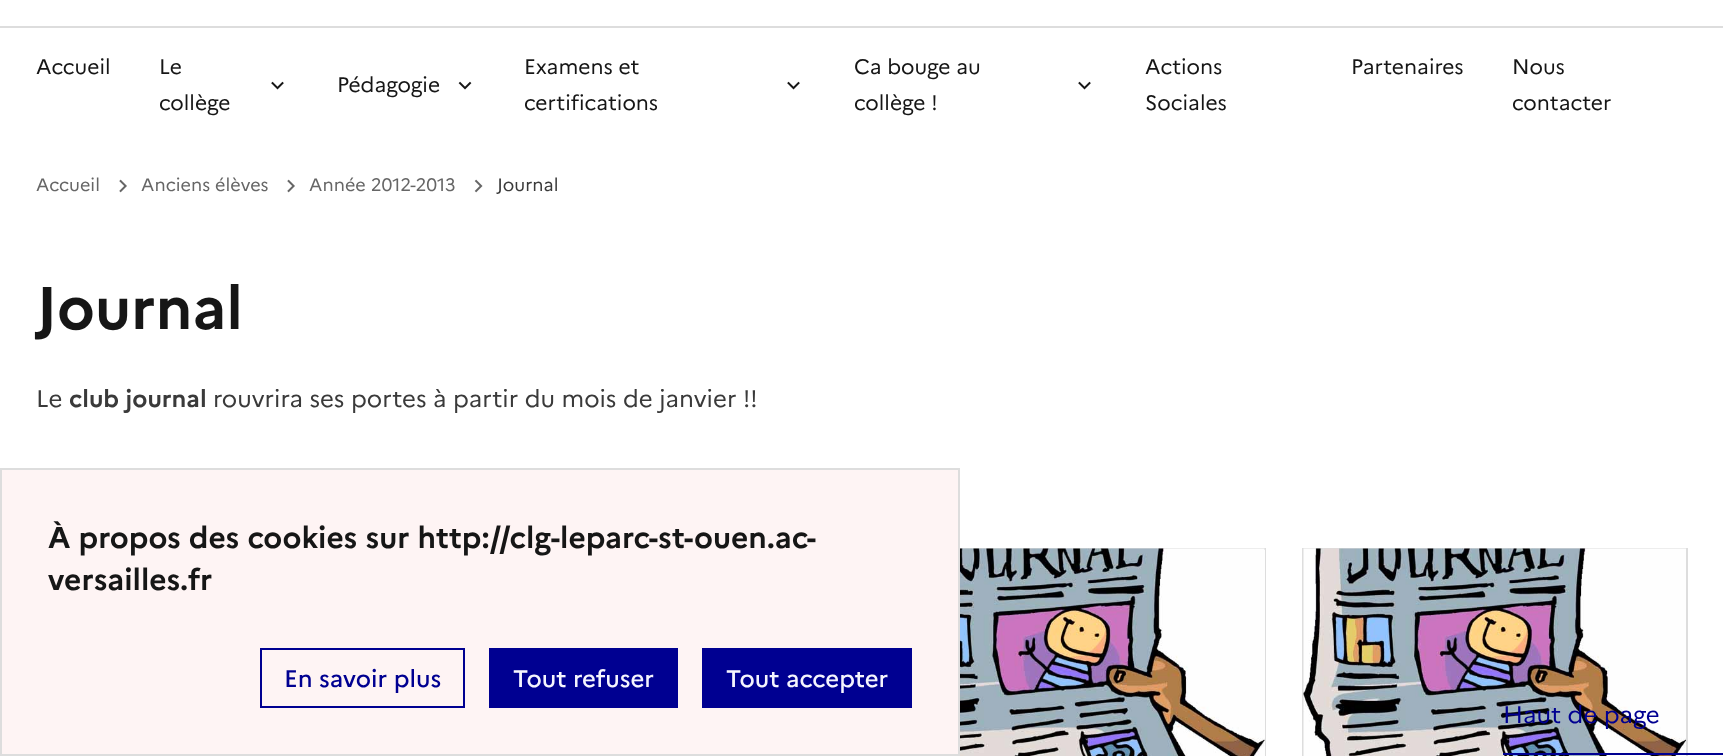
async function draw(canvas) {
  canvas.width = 1723
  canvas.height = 756
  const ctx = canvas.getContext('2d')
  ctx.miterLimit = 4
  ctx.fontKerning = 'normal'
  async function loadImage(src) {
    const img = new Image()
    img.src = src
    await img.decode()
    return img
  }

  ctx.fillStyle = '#fff'
  ctx.fillRect(0, 0, 1723, 756)
  ctx.fillStyle = '#ddd'
  ctx.fillRect(0, 26, 1723, 2)
  ctx.font = '21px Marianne'
  ctx.fillStyle = '#161616'
  ctx.fillText('Accueil', 36, 74)
  ctx.fillText('Le', 159, 74)
  ctx.drawImage(await loadImage('image0.png'), 271, 81, 13, 9)
  ctx.fillText('collège', 159, 110)
  ctx.fillText('Pédagogie', 337, 92)
  ctx.drawImage(await loadImage('image1.png'), 458, 81, 14, 9)
  ctx.fillText('Examens et', 524, 74)
  ctx.drawImage(await loadImage('image0.png'), 787, 81, 13, 9)
  ctx.fillText('certifications', 524, 110)
  ctx.fillText('Ca bouge au', 854, 74)
  ctx.drawImage(await loadImage('image0.png'), 1078, 81, 13, 9)
  ctx.fillText('collège !', 854, 110)
  ctx.fillText('Actions', 1145, 74)
  ctx.fillText('Sociales', 1145, 110)
  ctx.fillText('Partenaires', 1351, 74)
  ctx.fillText('Nous', 1512, 74)
  ctx.fillText('contacter', 1512, 110)
  ctx.font = '18px Marianne'
  ctx.fillStyle = '#666'
  ctx.fillText('Accueil', 36, 191)
  ctx.drawImage(await loadImage('image2.png'), 119, 179, 8, 14)
  ctx.fillText('Anciens élèves', 141, 191)
  ctx.drawImage(await loadImage('image2.png'), 287, 179, 8, 14)
  ctx.fillText('Année 2012-2013', 309, 191)
  ctx.drawImage(await loadImage('image3.png'), 474, 179, 9, 14)
  ctx.fillStyle = '#3a3a3a'
  ctx.fillText('Journal', 497, 191)
  ctx.font = 'bold 60px Marianne'
  ctx.fillStyle = '#161616'
  ctx.fillText('Journal', 36, 329)
  ctx.font = '24px Marianne'
  ctx.fillStyle = '#3a3a3a'
  ctx.fillText('Le', 36, 407)
  ctx.font = 'bold 24px Marianne'
  ctx.fillText('club journal', 69, 407)
  ctx.font = '24px Marianne'
  ctx.fillText('rouvrira ses portes à partir du mois de janvier !!', 213, 407)
  ctx.fillStyle = '#ddd'
  ctx.fillRect(960, 548, 306, 2)
  ctx.fillRect(1265, 548, 1, 208)
  ctx.drawImage(await loadImage('image4.png'), 960, 548, 305, 208)
  ctx.fillRect(1302, 548, 386, 1)
  ctx.fillRect(1686, 548, 2, 208)
  ctx.fillRect(1302, 548, 2, 208)
  ctx.drawImage(await loadImage('image5.png'), 1303, 548, 383, 208)
  ctx.fillStyle = '#fef4f4'
  ctx.beginPath()
  ctx.rect(1, 469, 958, 286)
  ctx.fill()
  ctx.strokeStyle = '#ddd'
  ctx.lineWidth = 2
  ctx.stroke()
  ctx.font = 'bold 30px Marianne'
  ctx.fillStyle = '#161616'
  ctx.fillText('À propos des cookies sur http://clg-leparc-st-ouen.ac-', 48, 548)
  ctx.fillText('versailles.fr', 48, 590)
  ctx.strokeStyle = '#000091'
  ctx.strokeRect(261, 649, 203, 58)
  ctx.font = '500 24px Marianne'
  ctx.fillStyle = '#000091'
  ctx.fillText('En savoir plus', 284, 687)
  ctx.fillRect(489, 648, 189, 60)
  ctx.fillStyle = '#f5f5fe'
  ctx.fillText('Tout refuser', 513, 687)
  ctx.fillStyle = '#000091'
  ctx.fillRect(702, 648, 210, 60)
  ctx.fillStyle = '#f5f5fe'
  ctx.fillText('Tout accepter', 726, 687)
  ctx.fillStyle = '#000091'
  ctx.fillRect(1503, 753, 220, 2)
  ctx.font = '24px Marianne'
  ctx.fillText('Haut de page', 1503, 723)
}

draw(document.querySelector('canvas'))
